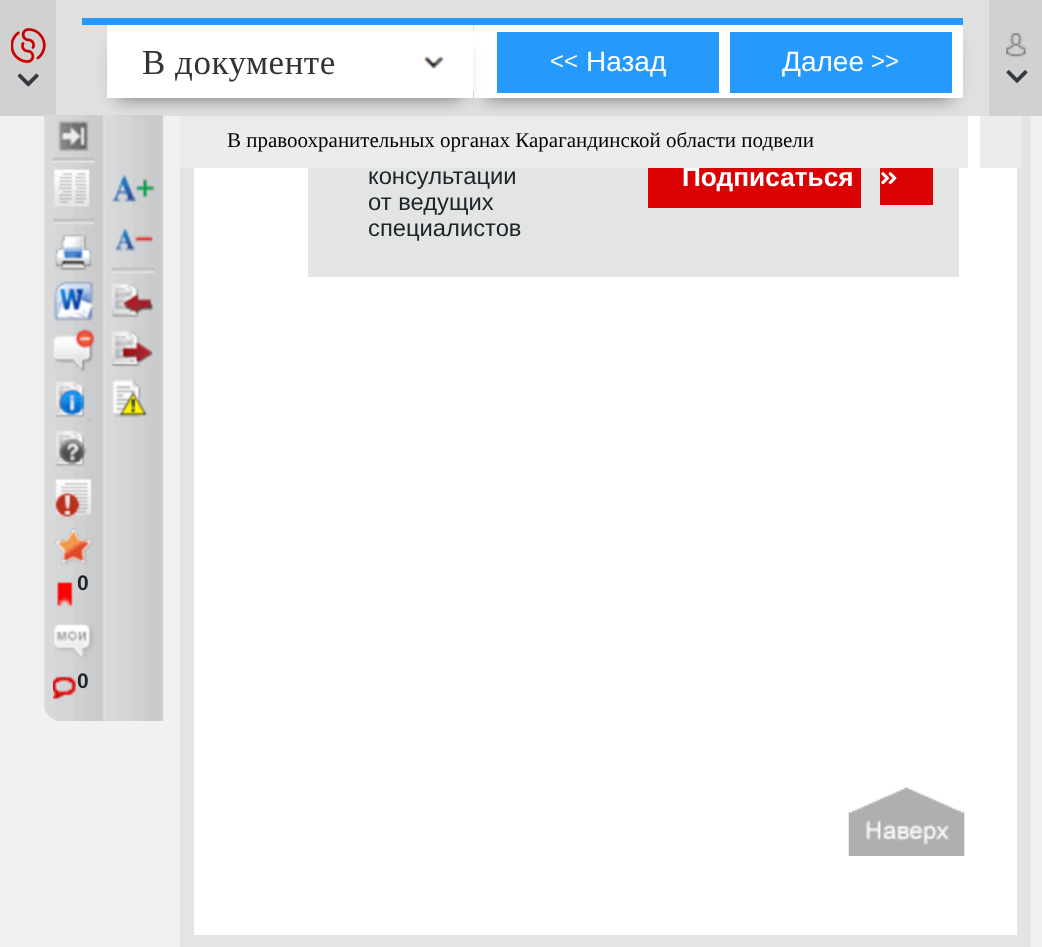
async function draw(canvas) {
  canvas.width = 1042
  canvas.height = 947
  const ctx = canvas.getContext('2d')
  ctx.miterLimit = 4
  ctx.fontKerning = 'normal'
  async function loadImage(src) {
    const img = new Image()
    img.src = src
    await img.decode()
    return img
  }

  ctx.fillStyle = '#f1f1f1'
  ctx.fillRect(0, 0, 1042, 947)
  ctx.fillStyle = '#d1d1d1'
  ctx.fillRect(0, 0, 56, 116)
  ctx.drawImage(await loadImage('image0.png'), 11, 28, 35, 35)
  ctx.drawImage(await loadImage('image1.png'), 17, 73, 22, 14)
  ctx.fillStyle = '#fff'
  ctx.fillRect(194, 116, 823, 819)
  ctx.strokeStyle = '#e3e5e4'
  ctx.lineWidth = 14
  ctx.strokeRect(187, -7, 837, 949)
  ctx.fillStyle = '#e0e0e0'
  ctx.fillRect(56, 0, 933, 116)
  ctx.fillStyle = '#ececec'
  ctx.fillRect(180, 116, 788, 52)
  ctx.fillStyle = '#00000080'
  ctx.filter = 'blur(9px)'
  ctx.beginPath()
  ctx.rect(485, 39, 467, 59)
  ctx.fill()
  ctx.filter = 'none'
  ctx.fillStyle = '#2699fc'
  ctx.fillRect(82, 18, 881, 7)
  ctx.fillStyle = '#fff'
  ctx.fillRect(473, 30, 1, 61)
  ctx.fillRect(474, 25, 489, 73)
  ctx.fillStyle = '#d1d1cf'
  ctx.beginPath()
  ctx.roundRect(44, 116, 59, 605, [0, 0, 0, 18])
  ctx.fill()
  ctx.drawImage(await loadImage('image5.png'), 44, 115, 60, 606)
  ctx.fillRect(103, 116, 60, 605)
  ctx.drawImage(await loadImage('image20.png'), 103, 115, 61, 606)
  ctx.fillStyle = '#00000080'
  ctx.filter = 'blur(9px)'
  ctx.beginPath()
  ctx.rect(117, 46, 345, 52)
  ctx.fill()
  ctx.filter = 'none'
  ctx.fillStyle = '#fff'
  ctx.fillRect(107, 25, 366, 73)
  ctx.drawImage(await loadImage('image2.png'), 423, 56, 21, 13)
  ctx.letterSpacing = '0.5px'
  ctx.font = '35px Liberation Serif'
  ctx.fillStyle = '#333'
  ctx.fillText('В документе', 142, 74)
  ctx.fillStyle = '#2699fc'
  ctx.fillRect(497, 32, 222, 61)
  ctx.letterSpacing = '0px'
  ctx.font = '24px Liberation Sans'
  ctx.fillStyle = '#fff'
  ctx.fillText('<<', 550, 69)
  ctx.font = '28px Liberation Sans'
  ctx.fillText('Назад', 586, 71)
  ctx.fillStyle = '#2699fc'
  ctx.fillRect(730, 32, 222, 61)
  ctx.fillStyle = '#fff'
  ctx.fillText('Далее', 782, 71)
  ctx.font = '24px Liberation Sans'
  ctx.fillText('>>', 871, 69)
  ctx.fillStyle = '#d1d1d1'
  ctx.fillRect(989, 0, 53, 116)
  ctx.drawImage(await loadImage('image3.png'), 1006, 33, 20, 24)
  ctx.drawImage(await loadImage('image4.png'), 1006, 70, 22, 13)
  ctx.font = '21px Liberation Serif'
  ctx.fillStyle = '#000'
  ctx.fillText('В правоохранительных органах Карагандинской области подвели', 227, 147)
  ctx.fillStyle = '#ececec'
  ctx.fillRect(980, 116, 42, 52)
  ctx.drawImage(await loadImage('image6.png'), 58, 120, 31, 32)
  ctx.drawImage(await loadImage('image7.png'), 52, 157, 43, 6)
  ctx.drawImage(await loadImage('image8.png'), 53, 169, 37, 38)
  ctx.drawImage(await loadImage('image9.png'), 53, 218, 42, 7)
  ctx.drawImage(await loadImage('image10.png'), 54, 234, 38, 37)
  ctx.drawImage(await loadImage('image11.png'), 53, 281, 41, 40)
  ctx.drawImage(await loadImage('image12.png'), 53, 328, 42, 44)
  ctx.drawImage(await loadImage('image13.png'), 55, 381, 36, 40)
  ctx.drawImage(await loadImage('image14.png'), 55, 430, 32, 37)
  ctx.drawImage(await loadImage('image15.png'), 55, 478, 37, 40)
  ctx.drawImage(await loadImage('image16.png'), 53, 528, 40, 37)
  ctx.drawImage(await loadImage('image17.png'), 56, 581, 17, 26)
  ctx.font = 'bold 21px Liberation Sans'
  ctx.fillStyle = '#212529'
  ctx.fillText('0', 77, 590)
  ctx.drawImage(await loadImage('image18.png'), 53, 623, 41, 37)
  ctx.drawImage(await loadImage('image19.png'), 53, 676, 24, 24)
  ctx.fillText('0', 77, 688)
  ctx.drawImage(await loadImage('image21.png'), 111, 174, 44, 29)
  ctx.drawImage(await loadImage('image22.png'), 115, 228, 38, 24)
  ctx.drawImage(await loadImage('image23.png'), 111, 267, 44, 7)
  ctx.drawImage(await loadImage('image24.png'), 111, 283, 43, 35)
  ctx.drawImage(await loadImage('image25.png'), 111, 330, 42, 37)
  ctx.drawImage(await loadImage('image26.png'), 112, 379, 36, 39)
  ctx.fillStyle = '#e3e5e4'
  ctx.fillRect(308, 168, 651, 109)
  ctx.font = '23.75px Liberation Sans'
  ctx.fillStyle = '#212529'
  ctx.fillText('консультации', 368, 184)
  ctx.fillText('от ведущих', 368, 210)
  ctx.fillText('специалистов', 368, 236)
  ctx.fillStyle = '#da0202'
  ctx.fillRect(648, 168, 213, 40)
  ctx.fillRect(880, 168, 53, 37)
  ctx.font = 'bold 26.25px Liberation Sans'
  ctx.fillStyle = '#fff'
  ctx.fillText('Подписаться', 682, 186)
  ctx.drawImage(await loadImage('image27.png'), 881, 172, 16, 13)
  ctx.drawImage(await loadImage('image28.png'), 848, 787, 117, 69)
}

draw(document.querySelector('canvas'))
